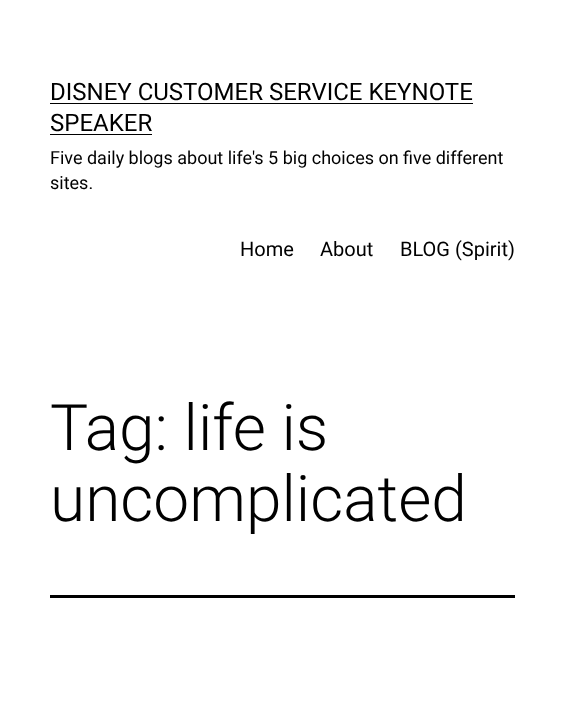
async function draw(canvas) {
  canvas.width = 565
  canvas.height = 703
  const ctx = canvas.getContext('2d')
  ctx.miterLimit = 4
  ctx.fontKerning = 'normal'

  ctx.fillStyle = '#fff'
  ctx.fillRect(0, 0, 565, 703)
  ctx.font = '24px Roboto'
  ctx.fillStyle = '#000'
  ctx.fillText('DISNEY CUSTOMER SERVICE KEYNOTE', 50, 100)
  ctx.fillRect(50, 103, 423, 1)
  ctx.fillText('SPEAKER', 50, 131)
  ctx.fillRect(50, 134, 102, 1)
  ctx.font = '18px Roboto'
  ctx.fillText('Five daily blogs about life\'s 5 big choices on five different', 50, 164)
  ctx.fillText('sites.', 50, 189)
  ctx.font = '20px Roboto'
  ctx.fillText('Home', 240, 256)
  ctx.fillText('About', 320, 256)
  ctx.fillText('BLOG (Spirit)', 400, 256)
  ctx.fillRect(50, 595, 465, 3)
  ctx.font = '300 64px Roboto'
  ctx.fillText('Tag: life is', 50, 450)
  ctx.fillText('uncomplicated', 50, 521)
}

draw(document.querySelector('canvas'))
